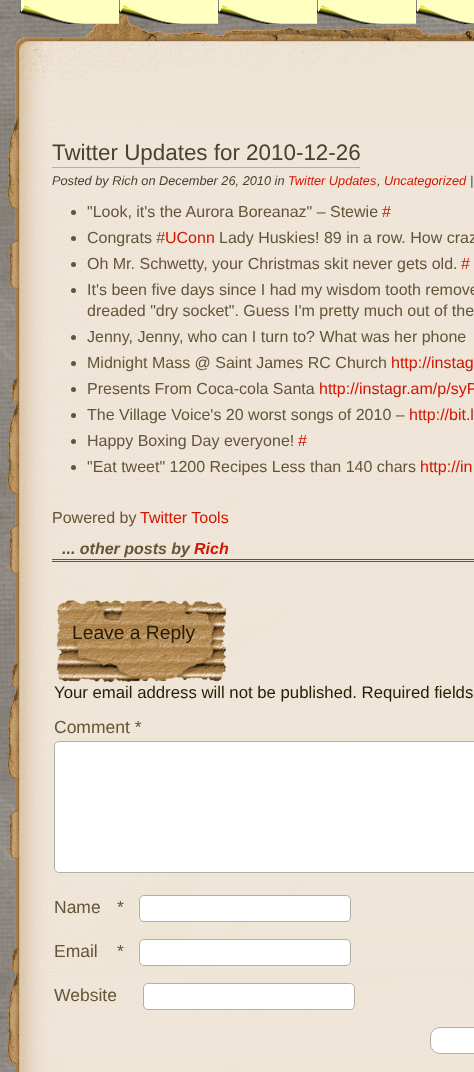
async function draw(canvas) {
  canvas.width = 474
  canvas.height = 1072
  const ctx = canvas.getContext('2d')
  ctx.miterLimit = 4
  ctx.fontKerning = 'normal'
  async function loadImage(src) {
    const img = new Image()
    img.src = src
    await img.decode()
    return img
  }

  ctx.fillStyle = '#fff'
  ctx.fillRect(0, 0, 474, 1072)
  ctx.drawImage(await loadImage('image0.png'), 0, 0, 474, 1072)
  ctx.drawImage(await loadImage('image6.png'), 15, 12, 459, 104)
  ctx.drawImage(await loadImage('image1.png'), 20, 0, 99, 24)
  ctx.drawImage(await loadImage('image2.png'), 119, 0, 99, 24)
  ctx.drawImage(await loadImage('image3.png'), 218, 0, 99, 24)
  ctx.drawImage(await loadImage('image4.png'), 317, 0, 99, 24)
  ctx.drawImage(await loadImage('image5.png'), 416, 0, 58, 24)
  ctx.drawImage(await loadImage('image7.png'), 7, 116, 467, 956)
  ctx.fillStyle = '#635537'
  ctx.fillRect(52, 559, 422, 1)
  ctx.fillRect(52, 561, 422, 1)
  ctx.font = '22.4px Liberation Sans'
  ctx.fillStyle = '#4a4131'
  ctx.fillText('Twitter Updates for 2010-12-26', 52, 160)
  ctx.fillStyle = '#b2b0a4'
  ctx.fillRect(52, 167, 308, 1)
  ctx.font = 'italic 12.75px Liberation Sans'
  ctx.fillStyle = '#4a4131'
  ctx.fillText('Posted by Rich on December 26, 2010 in', 52, 185)
  ctx.fillStyle = '#d21600'
  ctx.fillText('Twitter Updates', 288, 185)
  ctx.fillStyle = '#4a4131'
  ctx.fillText(',', 377, 185)
  ctx.fillStyle = '#d21600'
  ctx.fillText('Uncategorized', 384, 185)
  ctx.fillStyle = '#4a4131'
  ctx.fillText('|', 470, 185)
  ctx.fillStyle = '#635537'
  ctx.beginPath()
  ctx.arc(73.5, 212.5, 2.5, 0, 2 * Math.PI)
  ctx.fill()
  ctx.font = '16px Liberation Sans'
  ctx.fillText('"Look, it\'s the Aurora Boreanaz" – Stewie', 87, 217)
  ctx.fillStyle = '#d21600'
  ctx.fillText('#', 382, 217)
  ctx.fillStyle = '#635537'
  ctx.beginPath()
  ctx.arc(73.5, 238.5, 2.5, 0, 2 * Math.PI)
  ctx.fill()
  ctx.fillText('Congrats #', 87, 243)
  ctx.fillStyle = '#d21600'
  ctx.fillText('UConn', 165, 243)
  ctx.fillStyle = '#635537'
  ctx.fillText('Lady Huskies! 89 in a row. How craz', 219, 243)
  ctx.beginPath()
  ctx.arc(73.5, 264.5, 2.5, 0, 2 * Math.PI)
  ctx.fill()
  ctx.fillText('Oh Mr. Schwetty, your Christmas skit never gets old.', 87, 269)
  ctx.fillStyle = '#d21600'
  ctx.fillText('#', 461, 269)
  ctx.fillStyle = '#635537'
  ctx.beginPath()
  ctx.arc(73.5, 290.5, 2.5, 0, 2 * Math.PI)
  ctx.fill()
  ctx.fillText('It\'s been five days since I had my wisdom tooth remove', 87, 295)
  ctx.fillText('dreaded "dry socket". Guess I\'m pretty much out of the', 87, 316)
  ctx.beginPath()
  ctx.arc(73.5, 337.5, 2.5, 0, 2 * Math.PI)
  ctx.fill()
  ctx.fillText('Jenny, Jenny, who can I turn to? What was her phone', 87, 342)
  ctx.beginPath()
  ctx.arc(73.5, 363.5, 2.5, 0, 2 * Math.PI)
  ctx.fill()
  ctx.fillText('Midnight Mass @ Saint James RC Church', 87, 368)
  ctx.fillStyle = '#d21600'
  ctx.fillText('http://instag', 391, 368)
  ctx.fillStyle = '#635537'
  ctx.beginPath()
  ctx.arc(73.5, 389.5, 2.5, 0, 2 * Math.PI)
  ctx.fill()
  ctx.fillText('Presents From Coca-cola Santa', 87, 394)
  ctx.fillStyle = '#d21600'
  ctx.fillText('http://instagr.am/p/syP', 319, 394)
  ctx.fillStyle = '#635537'
  ctx.beginPath()
  ctx.arc(73.5, 415.5, 2.5, 0, 2 * Math.PI)
  ctx.fill()
  ctx.fillText('The Village Voice\'s 20 worst songs of 2010 –', 87, 420)
  ctx.fillStyle = '#d21600'
  ctx.fillText('http://bit.l', 409, 420)
  ctx.fillStyle = '#635537'
  ctx.beginPath()
  ctx.arc(73.5, 441.5, 2.5, 0, 2 * Math.PI)
  ctx.fill()
  ctx.fillText('Happy Boxing Day everyone!', 87, 446)
  ctx.fillStyle = '#d21600'
  ctx.fillText('#', 298, 446)
  ctx.fillStyle = '#635537'
  ctx.beginPath()
  ctx.arc(73.5, 467.5, 2.5, 0, 2 * Math.PI)
  ctx.fill()
  ctx.fillText('"Eat tweet" 1200 Recipes Less than 140 chars', 87, 472)
  ctx.fillStyle = '#d21600'
  ctx.fillText('http://in', 420, 472)
  ctx.fillStyle = '#635537'
  ctx.fillText('Powered by', 52, 523)
  ctx.fillStyle = '#d21600'
  ctx.fillText('Twitter Tools', 140, 523)
  ctx.font = 'italic bold 16px Liberation Sans'
  ctx.fillStyle = '#635537'
  ctx.fillText('... other posts by', 62, 554)
  ctx.fillStyle = '#d21600'
  ctx.fillText('Rich', 194, 554)
  ctx.drawImage(await loadImage('image8.png'), 56, 600, 170, 83)
  ctx.font = '19.25px Liberation Sans'
  ctx.fillStyle = '#271b03'
  ctx.fillText('Leave a Reply', 72, 639)
  ctx.font = '16.75px Liberation Sans'
  ctx.fillText('Your email address will not be published. Required fields', 54, 698)
  ctx.font = '17.5px Liberation Sans'
  ctx.fillStyle = '#635537'
  ctx.fillText('Comment *', 54, 733)
  ctx.fillStyle = '#fff'
  ctx.beginPath()
  ctx.roundRect(54.5, 741.5, 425, 131, 4.5)
  ctx.fill()
  ctx.strokeStyle = '#b2b0a4'
  ctx.stroke()
  ctx.fillStyle = '#635537'
  ctx.fillText('Name', 54, 913)
  ctx.fillText('*', 117, 913)
  ctx.fillStyle = '#fff'
  ctx.beginPath()
  ctx.roundRect(139.5, 895.5, 211, 26, 4.5)
  ctx.fill()
  ctx.stroke()
  ctx.fillStyle = '#635537'
  ctx.fillText('Email', 54, 957)
  ctx.fillText('*', 117, 957)
  ctx.fillStyle = '#fff'
  ctx.beginPath()
  ctx.roundRect(139.5, 939.5, 211, 26, 4.5)
  ctx.fill()
  ctx.stroke()
  ctx.fillStyle = '#635537'
  ctx.fillText('Website', 54, 1001)
  ctx.fillStyle = '#fff'
  ctx.beginPath()
  ctx.roundRect(143.5, 983.5, 211, 26, 4.5)
  ctx.fill()
  ctx.stroke()
  ctx.beginPath()
  ctx.roundRect(430.5, 1027.5, 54, 26, 9.5)
  ctx.fill()
  ctx.stroke()
}

draw(document.querySelector('canvas'))
